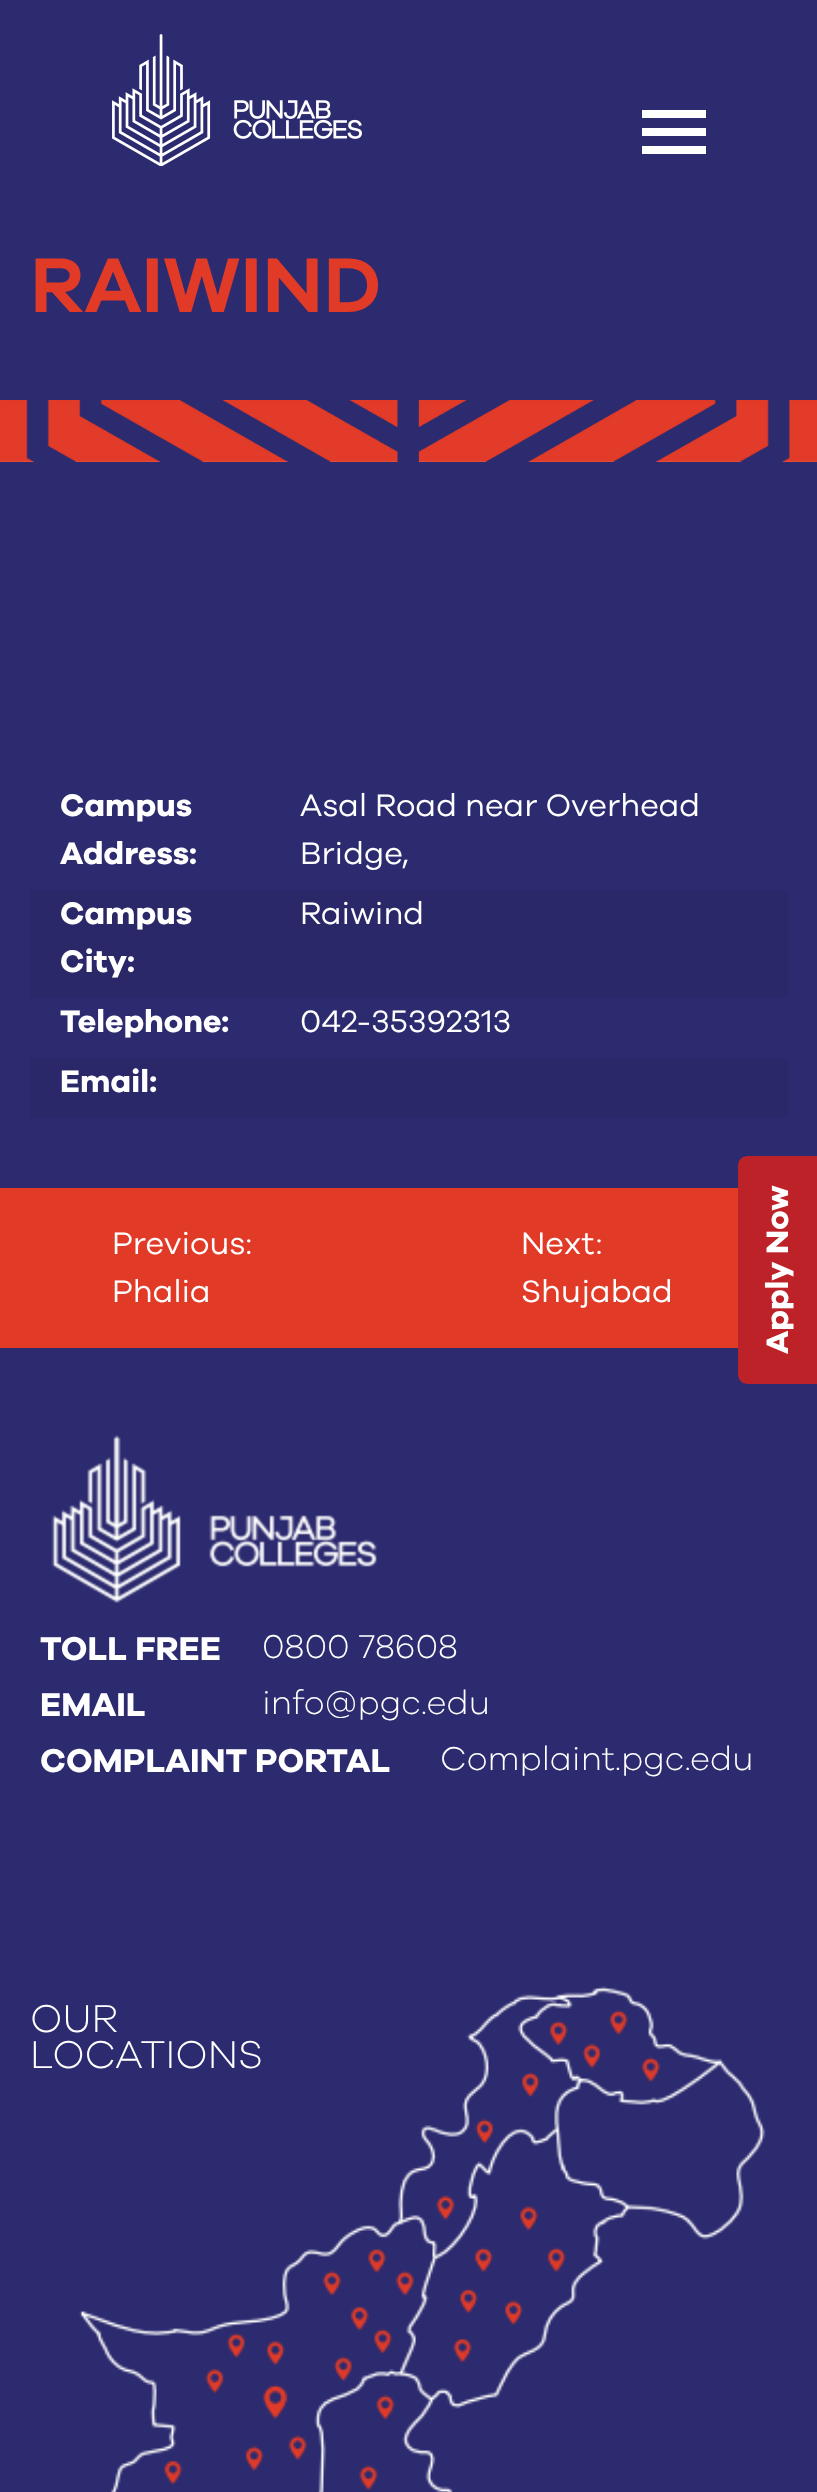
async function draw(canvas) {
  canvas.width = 817
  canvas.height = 2492
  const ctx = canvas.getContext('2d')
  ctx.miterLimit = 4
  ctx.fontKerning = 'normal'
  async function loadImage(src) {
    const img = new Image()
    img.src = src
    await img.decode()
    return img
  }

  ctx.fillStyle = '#2d2b6f'
  ctx.fillRect(0, 0, 817, 2492)
  ctx.drawImage(await loadImage('image0.png'), 112, 34, 250, 132)
  ctx.fillStyle = '#fff'
  ctx.fillRect(642, 110, 64, 8)
  ctx.fillRect(642, 128, 64, 8)
  ctx.fillRect(642, 146, 64, 8)
  ctx.drawImage(await loadImage('image1.png'), 0, 400, 817, 62)
  ctx.font = '80px "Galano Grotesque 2"'
  ctx.fillStyle = '#e13b28'
  ctx.fillText('RAIWIND', 30, 312)
  ctx.font = 'bold 32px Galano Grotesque'
  ctx.fillStyle = '#fff'
  ctx.fillText('Campus', 60, 816)
  ctx.fillText('Address:', 60, 864)
  ctx.font = '32px Galano Grotesque'
  ctx.fillText('Asal Road near Overhead', 300, 816)
  ctx.fillText('Bridge,', 300, 864)
  ctx.fillStyle = '#2a2869'
  ctx.fillRect(30, 890, 758, 108)
  ctx.font = 'bold 32px Galano Grotesque'
  ctx.fillStyle = '#fff'
  ctx.fillText('Campus', 60, 924)
  ctx.fillText('City:', 60, 972)
  ctx.font = '32px Galano Grotesque'
  ctx.fillText('Raiwind', 300, 924)
  ctx.font = 'bold 32px Galano Grotesque'
  ctx.fillText('Telephone:', 60, 1032)
  ctx.font = '32px Galano Grotesque'
  ctx.fillText('042-35392313', 300, 1032)
  ctx.fillStyle = '#2a2869'
  ctx.fillRect(30, 1058, 758, 60)
  ctx.font = 'bold 32px Galano Grotesque'
  ctx.fillStyle = '#fff'
  ctx.fillText('Email:', 60, 1092)
  ctx.fillStyle = '#e13b28'
  ctx.fillRect(0, 1188, 738, 160)
  ctx.font = '32px Galano Grotesque'
  ctx.fillStyle = '#fff'
  ctx.fillText('Previous:', 112, 1254)
  ctx.fillText('Phalia', 112, 1302)
  ctx.fillText('Next:', 521, 1254)
  ctx.fillText('Shujabad', 521, 1302)
  ctx.fillStyle = '#bc2228'
  ctx.beginPath()
  ctx.moveTo(738, 1374)
  ctx.lineTo(738, 1166)
  ctx.bezierCurveTo(738, 1160, 742, 1156, 748, 1156)
  ctx.lineTo(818, 1156)
  ctx.lineTo(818, 1384)
  ctx.lineTo(748, 1384)
  ctx.bezierCurveTo(742, 1384, 738, 1380, 738, 1374)
  ctx.closePath()
  ctx.fill()
  ctx.font = 'bold 32px Galano Grotesque'
  ctx.fillStyle = '#fff'
  ctx.save()
  ctx.translate(788, 1354)
  ctx.rotate(-90 * Math.PI / 180)
  ctx.fillText('Apply Now', 0, 0)
  ctx.restore()
  ctx.drawImage(await loadImage('image2.png'), 51, 1435, 326, 168)
  ctx.font = 'bold 34px Galano Grotesque'
  ctx.fillText('TOLL FREE', 40, 1660)
  ctx.font = '34px "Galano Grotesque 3"'
  ctx.fillText('0800 78608', 262, 1658)
  ctx.font = 'bold 34px Galano Grotesque'
  ctx.fillText('EMAIL', 40, 1716)
  ctx.font = '34px "Galano Grotesque 3"'
  ctx.fillText('info@pgc.edu', 262, 1714)
  ctx.font = 'bold 34px Galano Grotesque'
  ctx.fillText('COMPLAINT PORTAL', 40, 1772)
  ctx.font = '34px "Galano Grotesque 3"'
  ctx.fillText('Complaint.pgc.edu', 440, 1770)
  ctx.drawImage(await loadImage('image3.png'), 79, 1986, 687, 506)
  ctx.font = '40px "Galano Grotesque 3"'
  ctx.fillText('OUR', 30, 2032)
  ctx.fillText('LOCATIONS', 30, 2068)
}

draw(document.querySelector('canvas'))
